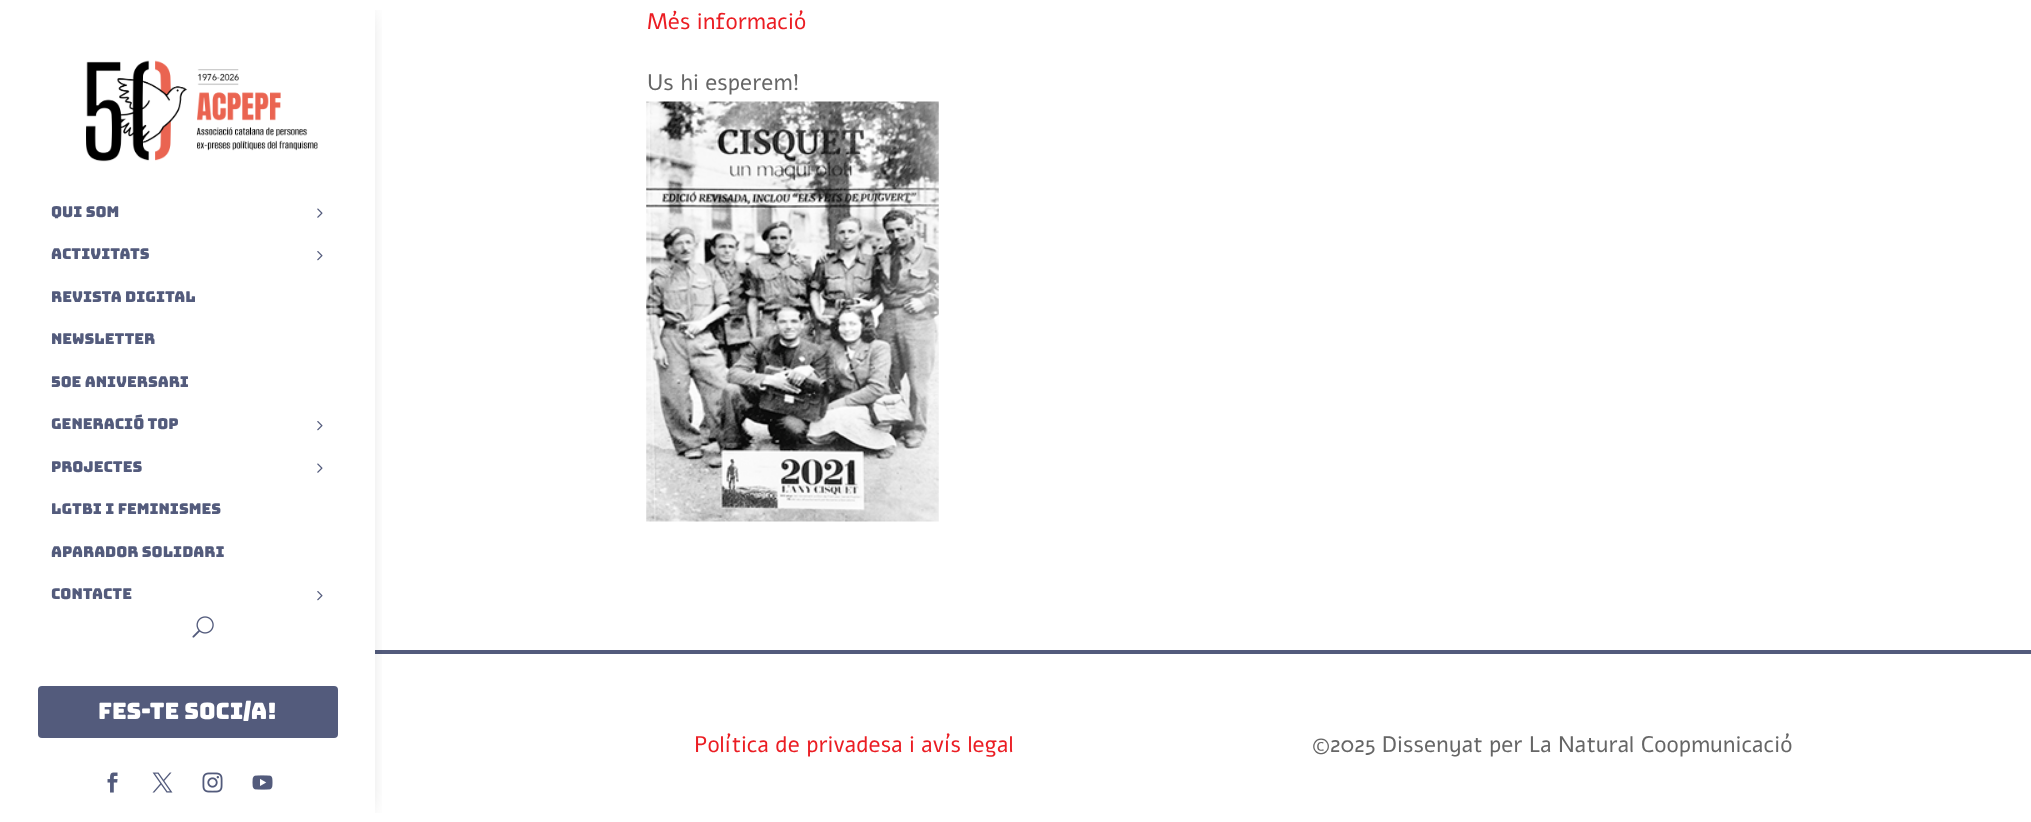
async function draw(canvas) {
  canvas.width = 2031
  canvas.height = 822
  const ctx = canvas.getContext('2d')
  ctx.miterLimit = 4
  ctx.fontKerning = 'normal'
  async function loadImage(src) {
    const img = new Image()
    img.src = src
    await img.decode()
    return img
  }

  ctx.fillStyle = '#fff'
  ctx.fillRect(0, 0, 2031, 822)
  ctx.fillStyle = '#535b7c'
  ctx.fillRect(375, 650, 1656, 4)
  ctx.save()
  ctx.beginPath()
  ctx.rect(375, 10, 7, 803)
  ctx.clip()
  ctx.fillStyle = '#0000004d'
  ctx.filter = 'blur(12.5px)'
  ctx.beginPath()
  ctx.rect(13, 13, 350, 797)
  ctx.fill()
  ctx.filter = 'none'
  ctx.restore()
  ctx.drawImage(await loadImage('image0.png'), 86, 60, 232, 102)
  ctx.font = '15px Bungee'
  ctx.fillText('Qui som', 51, 217)
  ctx.drawImage(await loadImage('image1.png'), 317, 208, 6, 10)
  ctx.fillText('Activitats', 51, 259)
  ctx.drawImage(await loadImage('image2.png'), 317, 251, 6, 10)
  ctx.fillText('Revista Digital', 51, 302)
  ctx.fillText('Newsletter', 51, 344)
  ctx.fillText('50e aniversari', 51, 387)
  ctx.fillText('Generació TOP', 51, 429)
  ctx.drawImage(await loadImage('image2.png'), 317, 421, 6, 10)
  ctx.fillText('PROJECTES', 51, 472)
  ctx.drawImage(await loadImage('image1.png'), 317, 463, 6, 10)
  ctx.fillText('LGTBI i Feminismes', 51, 514)
  ctx.fillText('Aparador Solidari', 51, 557)
  ctx.fillText('Contacte', 51, 599)
  ctx.drawImage(await loadImage('image2.png'), 317, 591, 6, 10)
  ctx.drawImage(await loadImage('image3.png'), 192, 616, 22, 22)
  ctx.beginPath()
  ctx.roundRect(38, 686, 300, 52, 4)
  ctx.fill()
  ctx.font = '22.5px Bungee'
  ctx.fillStyle = '#fff'
  ctx.fillText('FES-TE SOCI/A!', 98, 719)
  ctx.drawImage(await loadImage('image4.png'), 107, 772, 11, 21)
  ctx.drawImage(await loadImage('image5.png'), 152, 772, 21, 21)
  ctx.drawImage(await loadImage('image6.png'), 202, 772, 21, 21)
  ctx.drawImage(await loadImage('image7.png'), 252, 775, 21, 15)
  ctx.font = '22.5px Alef'
  ctx.fillStyle = '#eb1d23'
  ctx.fillText('Més informació', 647, 29)
  ctx.fillStyle = '#666'
  ctx.fillText('Us hi esperem!', 647, 90)
  ctx.drawImage(await loadImage('image8.png'), 646, 101, 293, 421)
  ctx.fillStyle = '#eb1d23'
  ctx.fillText('Política de privadesa i avís legal', 694, 752)
  ctx.fillStyle = '#666'
  ctx.fillText('©2025 Dissenyat per La Natural Coopmunicació', 1312, 752)
}

draw(document.querySelector('canvas'))
